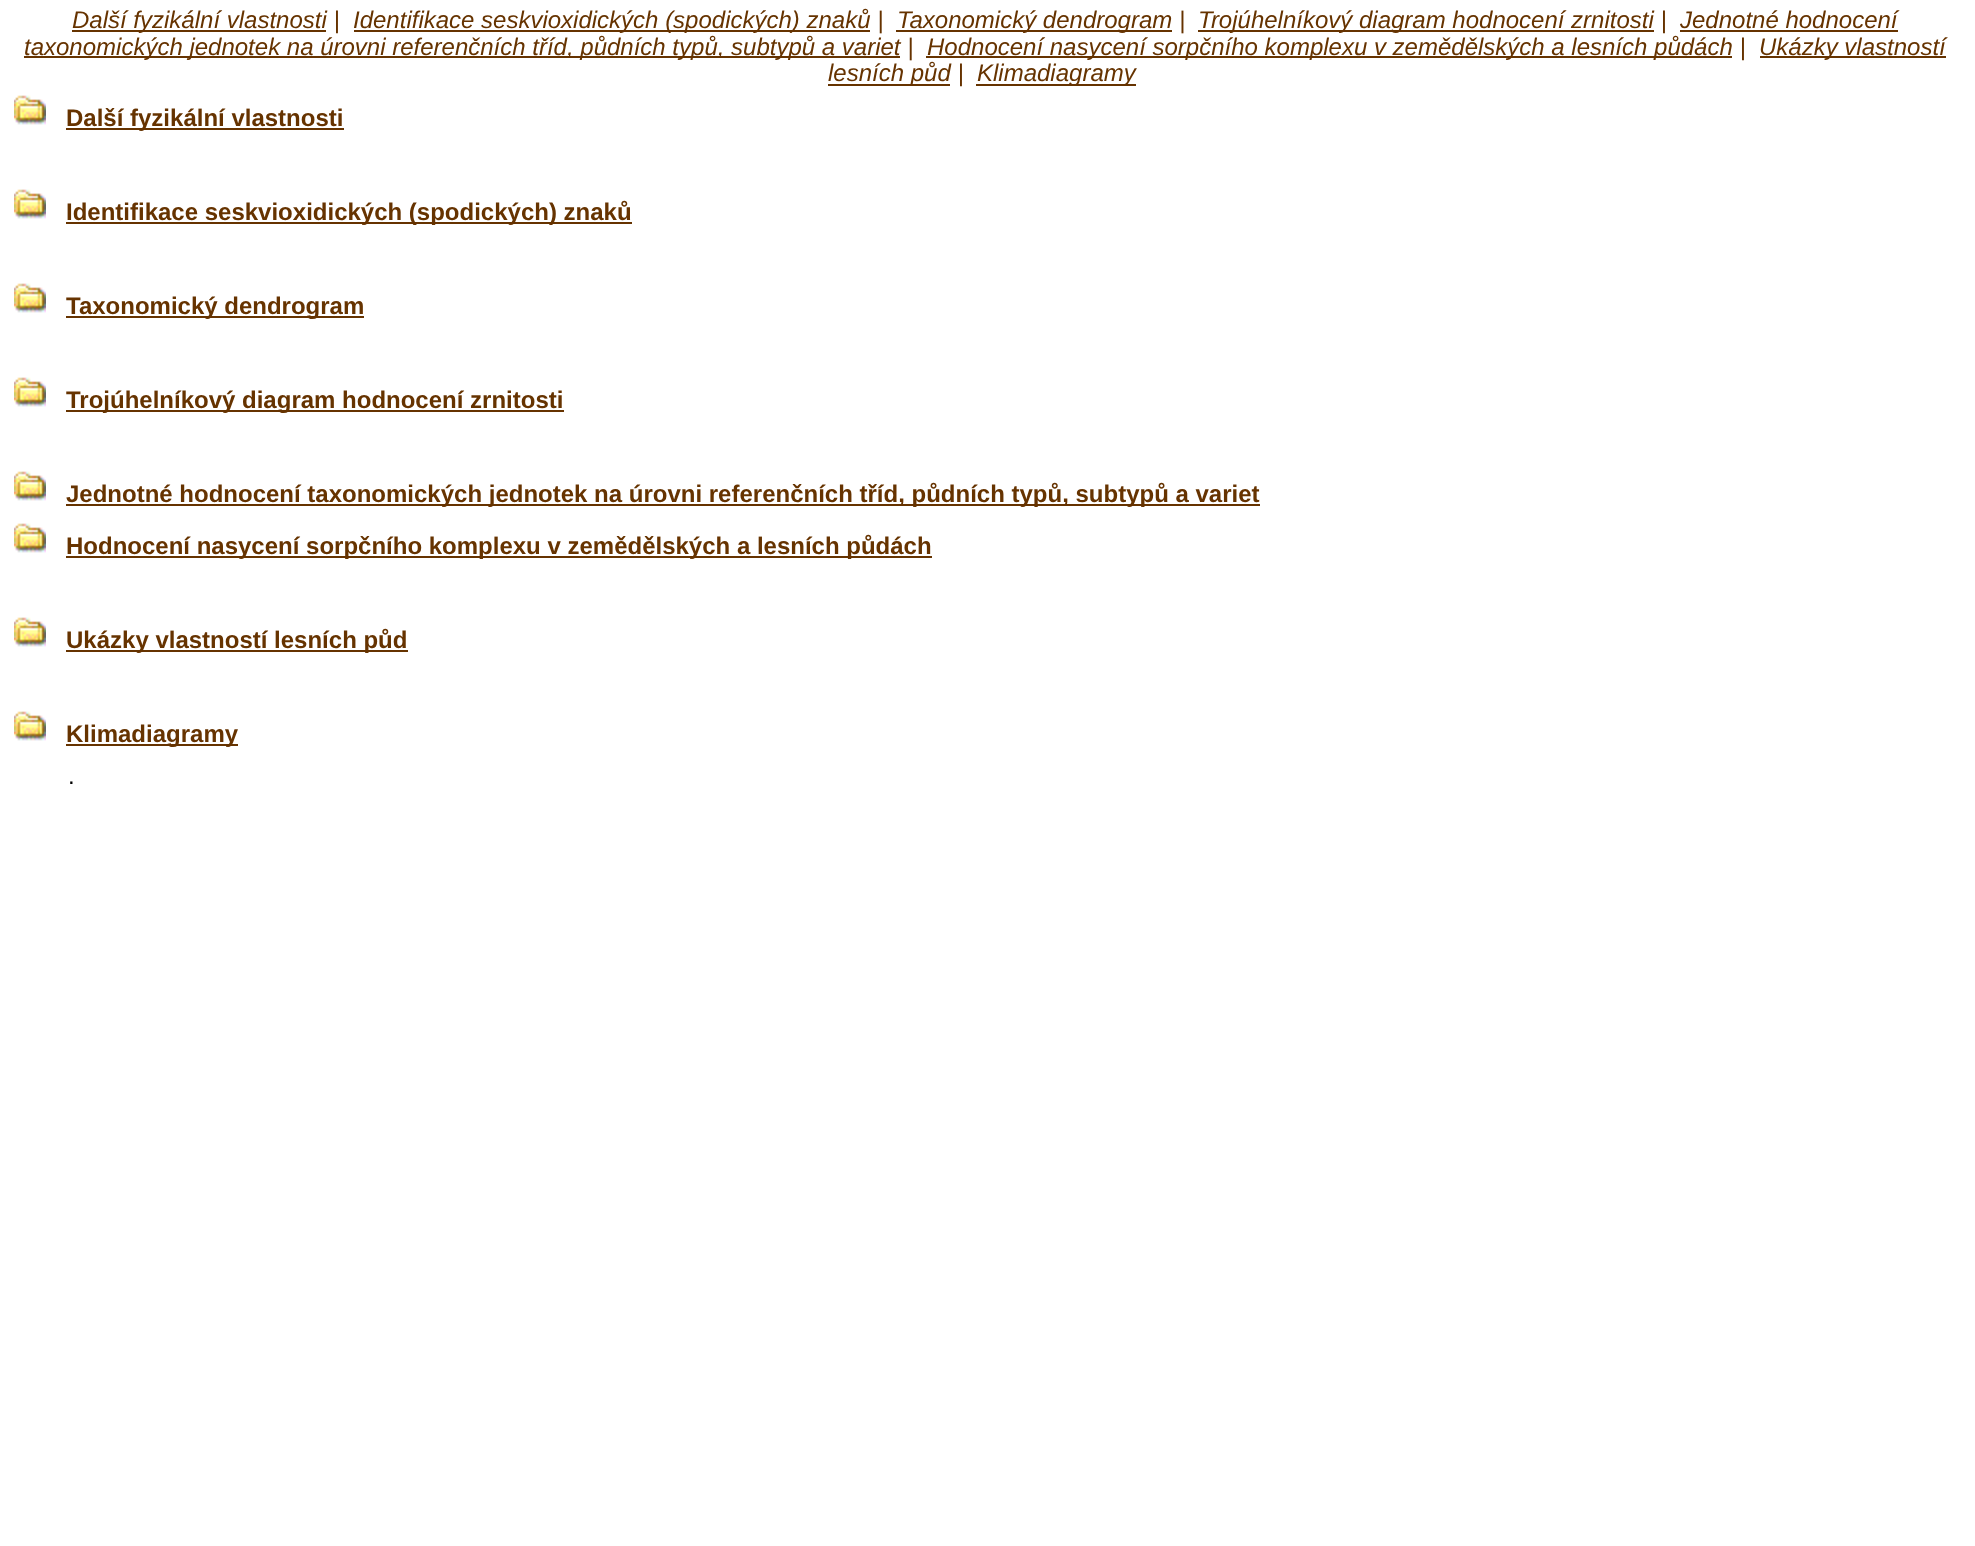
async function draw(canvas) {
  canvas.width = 1975
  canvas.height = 1546
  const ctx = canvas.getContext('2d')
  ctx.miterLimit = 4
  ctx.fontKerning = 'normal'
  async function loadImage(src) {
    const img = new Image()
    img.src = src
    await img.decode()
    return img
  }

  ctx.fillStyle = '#fff'
  ctx.fillRect(0, 0, 1975, 1546)
  ctx.fillStyle = '#630'
  ctx.fillRect(72, 30, 254, 2)
  ctx.font = 'italic 24px Liberation Sans'
  ctx.fillText('Další fyzikální vlastnosti |', 72, 28)
  ctx.fillRect(354, 30, 516, 2)
  ctx.fillText('Identifikace seskvioxidických (spodických) znaků |', 353, 28)
  ctx.fillRect(896, 30, 276, 2)
  ctx.fillText('Taxonomický dendrogram |', 897, 28)
  ctx.fillRect(1198, 30, 456, 2)
  ctx.fillText('Trojúhelníkový diagram hodnocení zrnitosti |', 1198, 28)
  ctx.fillText('Jednotné hodnocení', 1680, 28)
  ctx.fillRect(1680, 30, 218, 2)
  ctx.fillRect(24, 56, 876, 2)
  ctx.fillText('taxonomických jednotek na úrovni referenčních tříd, půdních typů, subtypů a variet |', 24, 55)
  ctx.fillRect(926, 56, 806, 2)
  ctx.fillText('Hodnocení nasycení sorpčního komplexu v zemědělských a lesních půdách |', 927, 55)
  ctx.fillRect(1760, 56, 186, 2)
  ctx.fillText('Ukázky vlastností', 1759, 55)
  ctx.fillRect(828, 84, 122, 2)
  ctx.fillText('lesních půd |', 828, 81)
  ctx.fillRect(976, 84, 160, 2)
  ctx.fillText('Klimadiagramy', 977, 81)
  ctx.drawImage(await loadImage('image0.png'), 14, 95, 32, 30)
  ctx.fillRect(66, 128, 278, 2)
  ctx.font = 'bold 24px Liberation Sans'
  ctx.fillText('Další fyzikální vlastnosti', 66, 126)
  ctx.drawImage(await loadImage('image0.png'), 14, 189, 32, 30)
  ctx.fillRect(66, 222, 566, 2)
  ctx.fillText('Identifikace seskvioxidických (spodických) znaků', 66, 220)
  ctx.drawImage(await loadImage('image0.png'), 14, 283, 32, 30)
  ctx.fillRect(66, 316, 298, 2)
  ctx.fillText('Taxonomický dendrogram', 66, 314)
  ctx.drawImage(await loadImage('image0.png'), 14, 377, 32, 30)
  ctx.fillRect(66, 410, 498, 2)
  ctx.fillText('Trojúhelníkový diagram hodnocení zrnitosti', 66, 408)
  ctx.drawImage(await loadImage('image0.png'), 14, 471, 32, 30)
  ctx.fillRect(66, 504, 1194, 2)
  ctx.fillText('Jednotné hodnocení taxonomických jednotek na úrovni referenčních tříd, půdních typů, subtypů a variet', 66, 502)
  ctx.drawImage(await loadImage('image0.png'), 14, 523, 32, 30)
  ctx.fillRect(66, 556, 866, 2)
  ctx.fillText('Hodnocení nasycení sorpčního komplexu v zemědělských a lesních půdách', 66, 554)
  ctx.drawImage(await loadImage('image0.png'), 14, 617, 32, 30)
  ctx.fillRect(66, 650, 342, 2)
  ctx.fillText('Ukázky vlastností lesních půd', 66, 648)
  ctx.drawImage(await loadImage('image0.png'), 14, 711, 32, 30)
  ctx.fillRect(66, 744, 172, 2)
  ctx.fillText('Klimadiagramy', 66, 742)
  ctx.font = '24px Liberation Sans'
  ctx.fillStyle = '#000'
  ctx.fillText('.', 68, 784)
}

draw(document.querySelector('canvas'))
